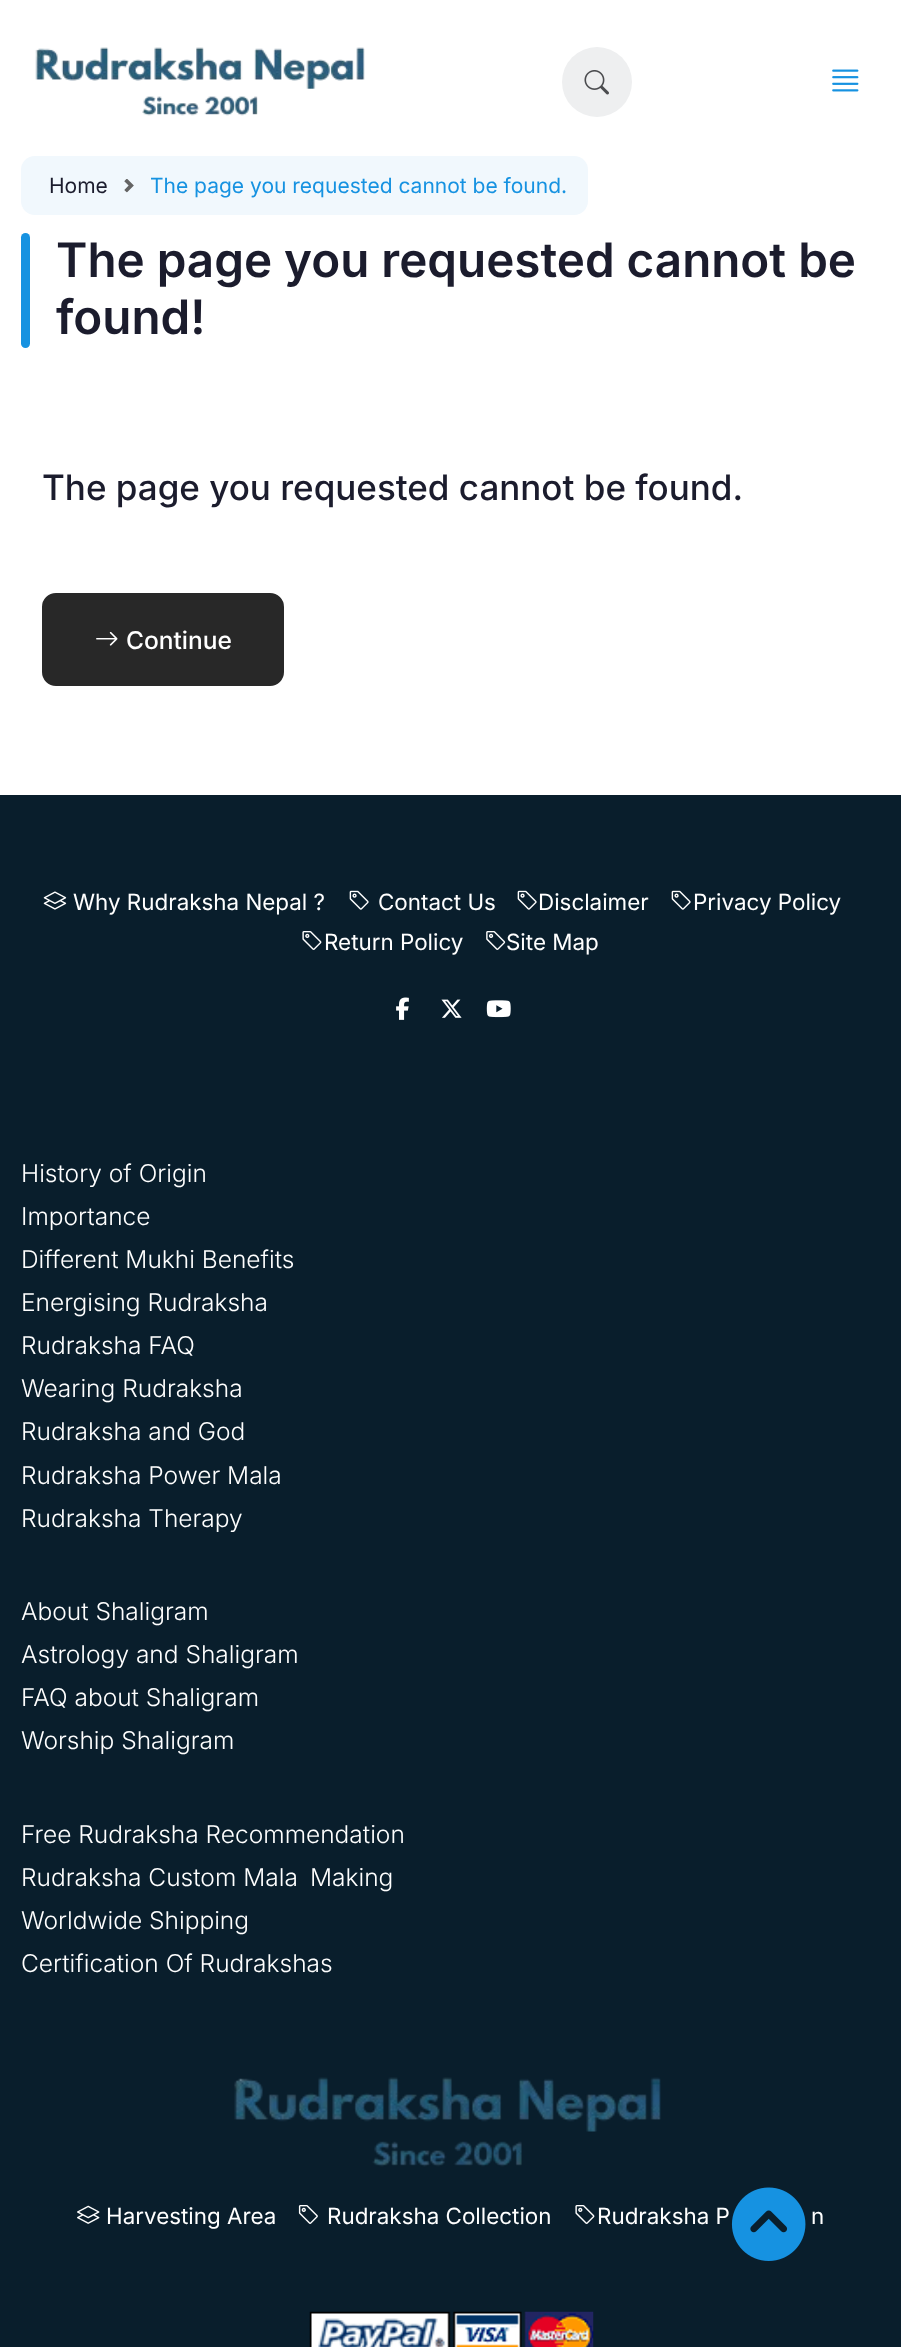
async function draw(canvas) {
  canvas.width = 901
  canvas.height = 2347
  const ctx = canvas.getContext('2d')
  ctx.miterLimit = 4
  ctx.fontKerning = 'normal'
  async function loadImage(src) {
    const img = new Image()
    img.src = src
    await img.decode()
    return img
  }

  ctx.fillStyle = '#fff'
  ctx.fillRect(0, 0, 901, 2347)
  ctx.drawImage(await loadImage('image0.png'), 35, 47, 330, 69)
  ctx.fillStyle = '#eeeff0'
  ctx.beginPath()
  ctx.arc(597, 82, 35, 0, 2 * Math.PI)
  ctx.fill()
  ctx.drawImage(await loadImage('image1.png'), 584, 70, 25, 25)
  ctx.drawImage(await loadImage('image2.png'), 832, 69, 27, 23)
  ctx.fillStyle = '#f1f8fd'
  ctx.beginPath()
  ctx.roundRect(21, 156, 567, 59, 14)
  ctx.fill()
  ctx.font = '21px Inter'
  ctx.fillStyle = '#1b1c2d'
  ctx.fillText('Home', 49, 193)
  ctx.drawImage(await loadImage('image3.png'), 124, 179, 10, 14)
  ctx.fillStyle = '#1692e1'
  ctx.fillText('The page you requested cannot be found.', 150, 193)
  ctx.beginPath()
  ctx.roundRect(21, 233, 9, 115, 4.5)
  ctx.fill()
  ctx.font = '600 47.6px Inter'
  ctx.fillStyle = '#1b1c2d'
  ctx.fillText('The page you requested cannot be', 56, 277)
  ctx.fillText('found!', 56, 334)
  ctx.font = '500 35px Inter'
  ctx.fillText('The page you requested cannot be found.', 42, 500)
  ctx.fillStyle = '#282828'
  ctx.beginPath()
  ctx.roundRect(43, 594, 240, 91, 13)
  ctx.fill()
  ctx.strokeStyle = '#282828'
  ctx.lineWidth = 2
  ctx.stroke()
  ctx.drawImage(await loadImage('image4.png'), 96, 631, 22, 15)
  ctx.font = '500 24.5px Inter'
  ctx.fillStyle = '#fff'
  ctx.fillText('Continue', 126, 649)
  ctx.fillStyle = '#091e2c'
  ctx.fillRect(0, 795, 901, 1552)
  ctx.drawImage(await loadImage('image5.png'), 43, 891, 24, 19)
  ctx.font = '22.4px Inter'
  ctx.fillStyle = '#fff'
  ctx.fillText('Why Rudraksha Nepal ?', 73, 910)
  ctx.drawImage(await loadImage('image6.png'), 349, 890, 20, 20)
  ctx.fillText('Contact Us', 378, 910)
  ctx.drawImage(await loadImage('image6.png'), 517, 890, 20, 20)
  ctx.fillText('Disclaimer', 538, 910)
  ctx.drawImage(await loadImage('image6.png'), 671, 890, 20, 20)
  ctx.fillText('Privacy Policy', 693, 910)
  ctx.drawImage(await loadImage('image7.png'), 302, 931, 20, 19)
  ctx.fillText('Return Policy', 324, 950)
  ctx.drawImage(await loadImage('image8.png'), 486, 931, 20, 19)
  ctx.fillText('Site Map', 506, 950)
  ctx.drawImage(await loadImage('image9.png'), 396, 997, 13, 23)
  ctx.drawImage(await loadImage('image10.png'), 441, 999, 21, 19)
  ctx.drawImage(await loadImage('image11.png'), 486, 1000, 25, 18)
  ctx.font = '300 24.5px Inter'
  ctx.fillText('History of Origin', 21, 1182)
  ctx.fillText('Importance', 21, 1225)
  ctx.fillText('Different Mukhi Benefits', 21, 1268)
  ctx.fillText('Energising Rudraksha', 21, 1311)
  ctx.fillText('Rudraksha FAQ', 21, 1354)
  ctx.fillText('Wearing Rudraksha', 21, 1397)
  ctx.fillText('Rudraksha and God', 21, 1440)
  ctx.fillText('Rudraksha Power Mala', 21, 1484)
  ctx.fillText('Rudraksha Therapy', 21, 1527)
  ctx.fillText('About Shaligram', 21, 1620)
  ctx.fillText('Astrology and Shaligram', 21, 1663)
  ctx.fillText('FAQ about Shaligram', 21, 1706)
  ctx.fillText('Worship Shaligram', 21, 1749)
  ctx.fillText('Free Rudraksha Recommendation', 21, 1843)
  ctx.fillText('Rudraksha Custom Mala', 21, 1886)
  ctx.fillText('Making', 310, 1886)
  ctx.fillText('Worldwide Shipping', 21, 1929)
  ctx.fillText('Certification Of Rudrakshas', 21, 1972)
  ctx.drawImage(await loadImage('image12.png'), 234, 2077, 427, 90)
  ctx.drawImage(await loadImage('image13.png'), 77, 2205, 23, 19)
  ctx.font = '22.4px Inter'
  ctx.fillText('Harvesting Area', 106, 2224)
  ctx.drawImage(await loadImage('image14.png'), 298, 2205, 20, 19)
  ctx.fillText('Rudraksha Collection', 327, 2224)
  ctx.drawImage(await loadImage('image7.png'), 575, 2205, 20, 19)
  ctx.fillText('Rudraksha P', 597, 2224)
  ctx.fillText('n', 811, 2224)
  ctx.drawImage(await loadImage('image15.png'), 309, 2311, 285, 36)
  ctx.drawImage(await loadImage('image16.png'), 731, 2187, 75, 74)
}

draw(document.querySelector('canvas'))
